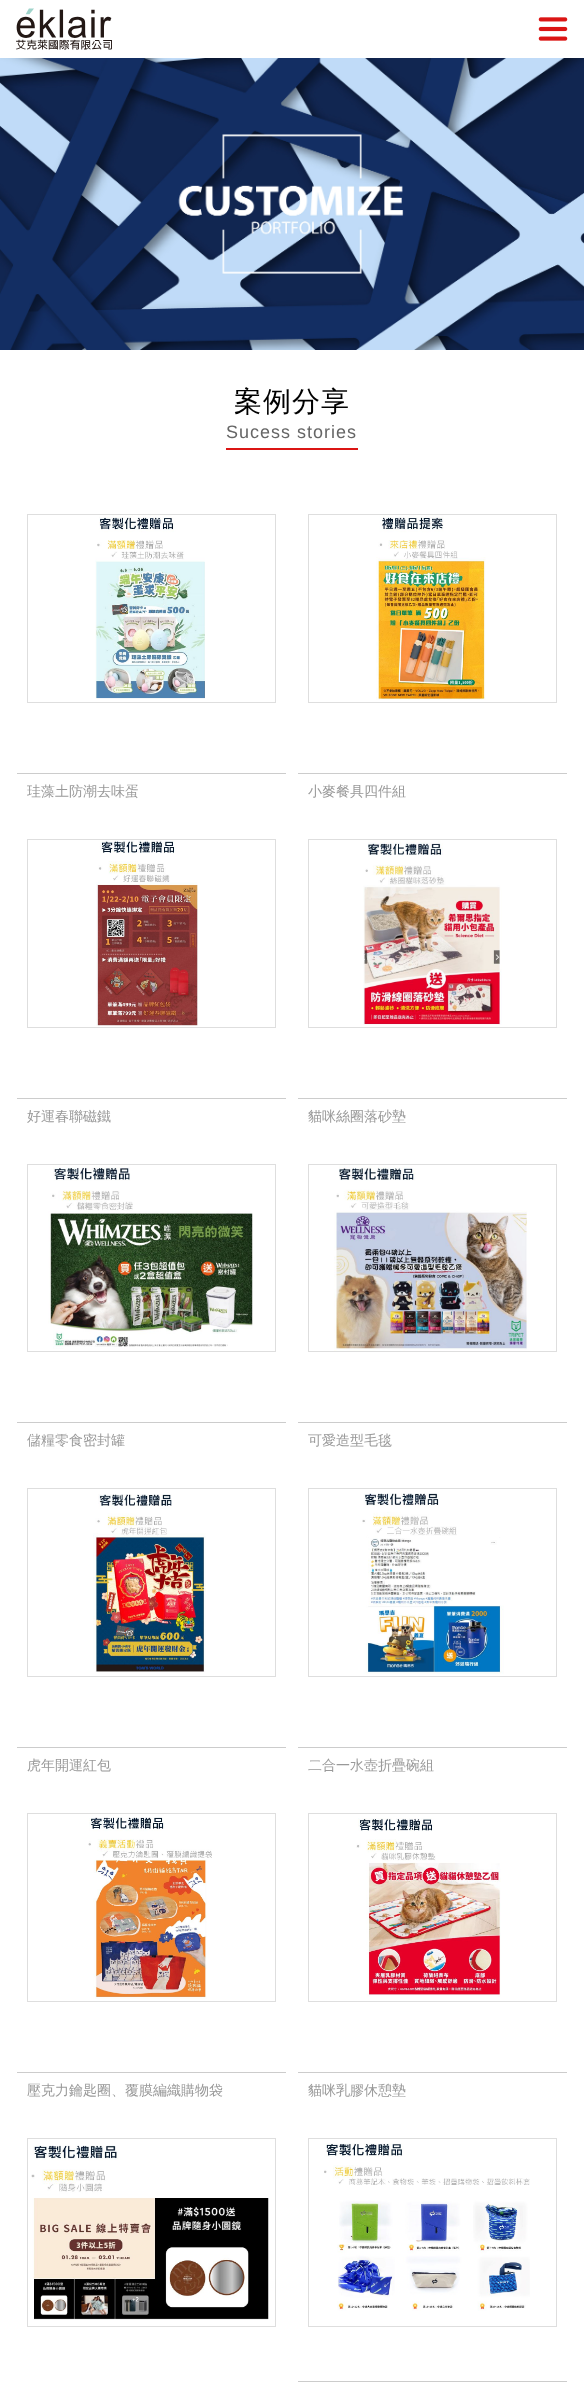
async function draw(canvas) {
  canvas.width = 584
  canvas.height = 2386
  const ctx = canvas.getContext('2d')
  ctx.miterLimit = 4
  ctx.fontKerning = 'normal'
  async function loadImage(src) {
    const img = new Image()
    img.src = src
    await img.decode()
    return img
  }

  ctx.fillStyle = '#fff'
  ctx.fillRect(0, 0, 584, 2386)
  ctx.drawImage(await loadImage('image0.png'), 16, 8, 96, 42)
  ctx.drawImage(await loadImage('image1.png'), 538, 17, 30, 24)
  ctx.drawImage(await loadImage('image2.png'), 0, 58, 584, 292)
  ctx.fillStyle = '#db1514'
  ctx.fillRect(226, 448, 132, 2)
  ctx.letterSpacing = '1px'
  ctx.font = '500 28px WenQuanYi Zen Hei'
  ctx.fillStyle = '#000'
  ctx.fillText('案例分享', 234, 411)
  ctx.font = '18px Liberation Sans'
  ctx.fillStyle = '#666'
  ctx.fillText('Sucess stories', 226, 438)
  ctx.strokeStyle = '#dedede'
  ctx.strokeRect(27.5, 514.5, 248, 188)
  ctx.drawImage(await loadImage('image3.png'), 95, 515, 110, 184)
  ctx.fillStyle = '#ccc'
  ctx.fillRect(17, 773, 269, 1)
  ctx.letterSpacing = '0px'
  ctx.font = '500 14px WenQuanYi Zen Hei'
  ctx.fillStyle = '#999'
  ctx.fillText('珪藻土防潮去味蛋', 27, 796)
  ctx.strokeRect(308.5, 514.5, 248, 188)
  ctx.drawImage(await loadImage('image4.png'), 376, 515, 110, 185)
  ctx.fillStyle = '#ccc'
  ctx.fillRect(298, 773, 269, 1)
  ctx.fillStyle = '#999'
  ctx.fillText('小麥餐具四件組', 308, 796)
  ctx.strokeRect(27.5, 839.5, 248, 188)
  ctx.drawImage(await loadImage('image5.png'), 96, 840, 102, 186)
  ctx.fillStyle = '#ccc'
  ctx.fillRect(17, 1098, 269, 1)
  ctx.fillStyle = '#999'
  ctx.fillText('好運春聯磁鐵', 27, 1121)
  ctx.strokeRect(308.5, 839.5, 248, 188)
  ctx.drawImage(await loadImage('image6.png'), 363, 840, 139, 185)
  ctx.fillStyle = '#ccc'
  ctx.fillRect(298, 1098, 269, 1)
  ctx.fillStyle = '#999'
  ctx.fillText('貓咪絲圈落砂墊', 308, 1121)
  ctx.strokeRect(27.5, 1164.5, 248, 187)
  ctx.drawImage(await loadImage('image7.png'), 48, 1165, 205, 184)
  ctx.fillStyle = '#ccc'
  ctx.fillRect(17, 1422, 269, 1)
  ctx.fillStyle = '#999'
  ctx.fillText('儲糧零食密封罐', 27, 1445)
  ctx.strokeRect(308.5, 1164.5, 248, 187)
  ctx.drawImage(await loadImage('image8.png'), 334, 1165, 193, 186)
  ctx.fillStyle = '#ccc'
  ctx.fillRect(298, 1422, 269, 1)
  ctx.fillStyle = '#999'
  ctx.fillText('可愛造型毛毯', 308, 1445)
  ctx.strokeRect(27.5, 1488.5, 248, 188)
  ctx.drawImage(await loadImage('image9.png'), 93, 1494, 113, 178)
  ctx.fillStyle = '#ccc'
  ctx.fillRect(17, 1747, 269, 1)
  ctx.fillStyle = '#999'
  ctx.fillText('虎年開運紅包', 27, 1770)
  ctx.strokeRect(308.5, 1488.5, 248, 188)
  ctx.drawImage(await loadImage('image10.png'), 362, 1493, 142, 181)
  ctx.fillStyle = '#ccc'
  ctx.fillRect(298, 1747, 269, 1)
  ctx.fillStyle = '#999'
  ctx.fillText('二合一水壺折疊碗組', 308, 1770)
  ctx.strokeRect(27.5, 1813.5, 248, 188)
  ctx.drawImage(await loadImage('image11.png'), 88, 1817, 124, 182)
  ctx.fillStyle = '#ccc'
  ctx.fillRect(17, 2072, 269, 1)
  ctx.fillStyle = '#999'
  ctx.fillText('壓克力鑰匙圈、覆膜編織購物袋', 27, 2095)
  ctx.strokeRect(308.5, 1813.5, 248, 188)
  ctx.drawImage(await loadImage('image12.png'), 356, 1818, 145, 179)
  ctx.fillStyle = '#ccc'
  ctx.fillRect(298, 2072, 269, 1)
  ctx.fillStyle = '#999'
  ctx.fillText('貓咪乳膠休憩墊', 308, 2095)
  ctx.strokeRect(27.5, 2138.5, 248, 188)
  ctx.drawImage(await loadImage('image13.png'), 31, 2145, 238, 175)
  ctx.strokeRect(308.5, 2138.5, 248, 188)
  ctx.drawImage(await loadImage('image14.png'), 324, 2143, 206, 168)
  ctx.fillStyle = '#ccc'
  ctx.fillRect(298, 2381, 269, 1)
}

draw(document.querySelector('canvas'))
